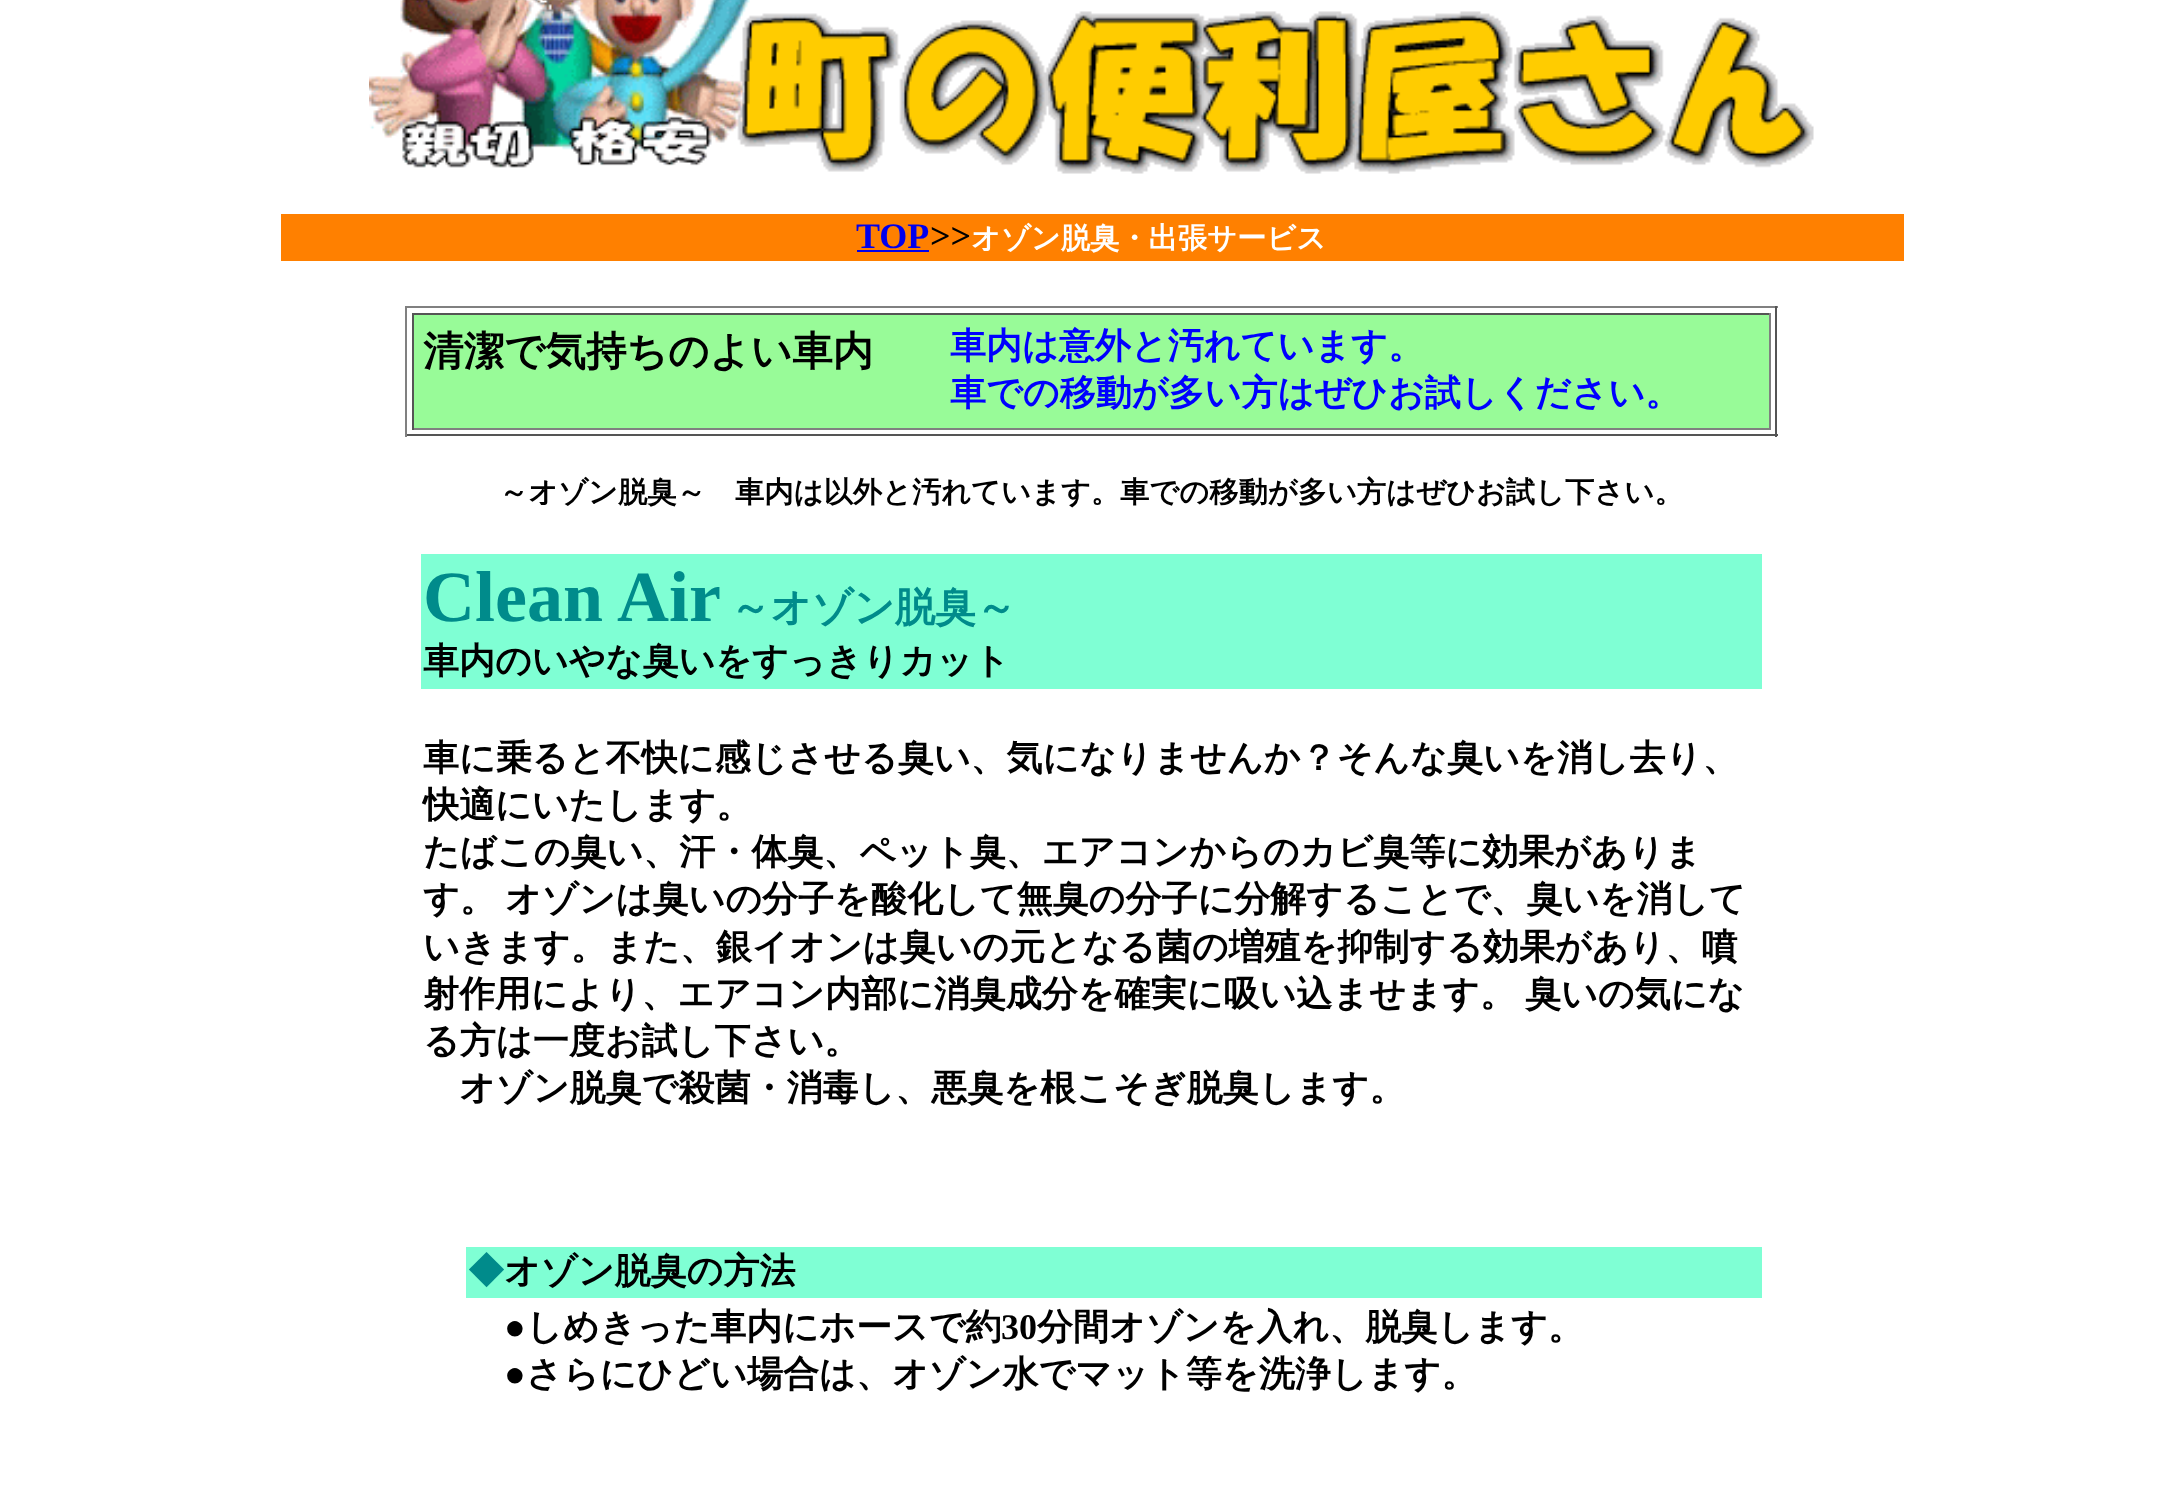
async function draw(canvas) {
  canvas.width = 2181
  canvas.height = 1504
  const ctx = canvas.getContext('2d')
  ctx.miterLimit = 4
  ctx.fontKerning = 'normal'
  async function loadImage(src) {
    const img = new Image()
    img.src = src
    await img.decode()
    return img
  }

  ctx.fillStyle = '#fff'
  ctx.fillRect(0, 0, 2181, 1504)
  ctx.drawImage(await loadImage('image0.png'), 369, 0, 1445, 174)
  ctx.fillStyle = '#ff8000'
  ctx.fillRect(281, 214, 1623, 47)
  ctx.font = 'bold 36px Liberation Serif'
  ctx.fillStyle = '#00e'
  ctx.fillText('TOP', 856, 248)
  ctx.fillRect(857, 250, 72, 2)
  ctx.fillStyle = '#000'
  ctx.fillText('>>', 930, 248)
  ctx.font = 'bold 29.25px WenQuanYi Zen Hei'
  ctx.fillStyle = '#fff'
  ctx.fillText('オゾン脱臭・出張サービス', 971, 248)
  ctx.fillStyle = '#808080'
  ctx.fillRect(405, 306, 1373, 2)
  ctx.fillStyle = '#555'
  ctx.fillRect(1775, 306, 2, 131)
  ctx.fillRect(405, 434, 1373, 2)
  ctx.fillStyle = '#808080'
  ctx.fillRect(405, 306, 2, 131)
  ctx.fillStyle = '#98fb98'
  ctx.fillRect(414, 315, 1355, 113)
  ctx.fillStyle = '#555'
  ctx.fillRect(412, 313, 1359, 2)
  ctx.fillStyle = '#808080'
  ctx.fillRect(1769, 313, 2, 117)
  ctx.fillRect(412, 428, 1359, 2)
  ctx.fillStyle = '#555'
  ctx.fillRect(412, 313, 2, 117)
  ctx.font = 'bold 40.5px WenQuanYi Zen Hei'
  ctx.fillStyle = '#000'
  ctx.fillText('清潔で気持ちのよい車内', 423, 365)
  ctx.font = 'bold 36px WenQuanYi Zen Hei'
  ctx.fillStyle = '#00f'
  ctx.fillText('車内は意外と汚れています。', 950, 358)
  ctx.fillText('車での移動が多い方はぜひお試しください。', 950, 405)
  ctx.font = 'bold 29.25px WenQuanYi Zen Hei'
  ctx.fillStyle = '#000'
  ctx.fillText('～オゾン脱臭～　車内は以外と汚れています。車での移動が多い方はぜひお試し下さい。', 499, 502)
  ctx.fillStyle = '#7fffd4'
  ctx.fillRect(421, 554, 1341, 135)
  ctx.font = 'bold 72px Liberation Serif'
  ctx.fillStyle = '#008b8b'
  ctx.fillText('Clean Air', 423, 621)
  ctx.font = 'bold 40.5px WenQuanYi Zen Hei'
  ctx.fillText('～オゾン脱臭～', 730, 621)
  ctx.font = 'bold 36px WenQuanYi Zen Hei'
  ctx.fillStyle = '#000'
  ctx.fillText('車内のいやな臭いをすっきりカット', 423, 673)
  ctx.fillText('車に乗ると不快に感じさせる臭い、気になりませんか？そんな臭いを消し去り、', 423, 770)
  ctx.fillText('快適にいたします。', 423, 817)
  ctx.fillText('たばこの臭い、汗・体臭、ペット臭、エアコンからのカビ臭等に効果がありま', 423, 864)
  ctx.fillText('す。', 423, 911)
  ctx.fillText('オゾンは臭いの分子を酸化して無臭の分子に分解することで、臭いを消して', 505, 911)
  ctx.fillText('いきます。また、銀イオンは臭いの元となる菌の増殖を抑制する効果があり、噴', 423, 959)
  ctx.fillText('射作用により、エアコン内部に消臭成分を確実に吸い込ませます。', 423, 1006)
  ctx.fillText('臭いの気にな', 1525, 1006)
  ctx.fillText('る方は一度お試し下さい。', 423, 1053)
  ctx.fillText('オゾン脱臭で殺菌・消毒し、悪臭を根こそぎ脱臭します。', 459, 1100)
  ctx.fillStyle = '#7fffd4'
  ctx.fillRect(466, 1247, 1296, 51)
  ctx.fillStyle = '#008b8b'
  ctx.fillText('◆', 468, 1283)
  ctx.fillStyle = '#000'
  ctx.fillText('オゾン脱臭の方法', 504, 1283)
  ctx.font = 'bold 36px Liberation Serif'
  ctx.fillText('●', 504, 1339)
  ctx.font = 'bold 36px WenQuanYi Zen Hei'
  ctx.fillText('しめきった車内にホースで約', 526, 1339)
  ctx.font = 'bold 36px Liberation Serif'
  ctx.fillText('30', 1001, 1339)
  ctx.font = 'bold 36px WenQuanYi Zen Hei'
  ctx.fillText('分間オゾンを入れ、脱臭します。', 1037, 1339)
  ctx.font = 'bold 36px Liberation Serif'
  ctx.fillText('●', 504, 1386)
  ctx.font = 'bold 36px WenQuanYi Zen Hei'
  ctx.fillText('さらにひどい場合は、オゾン水でマット等を洗浄します。', 526, 1386)
}

draw(document.querySelector('canvas'))
